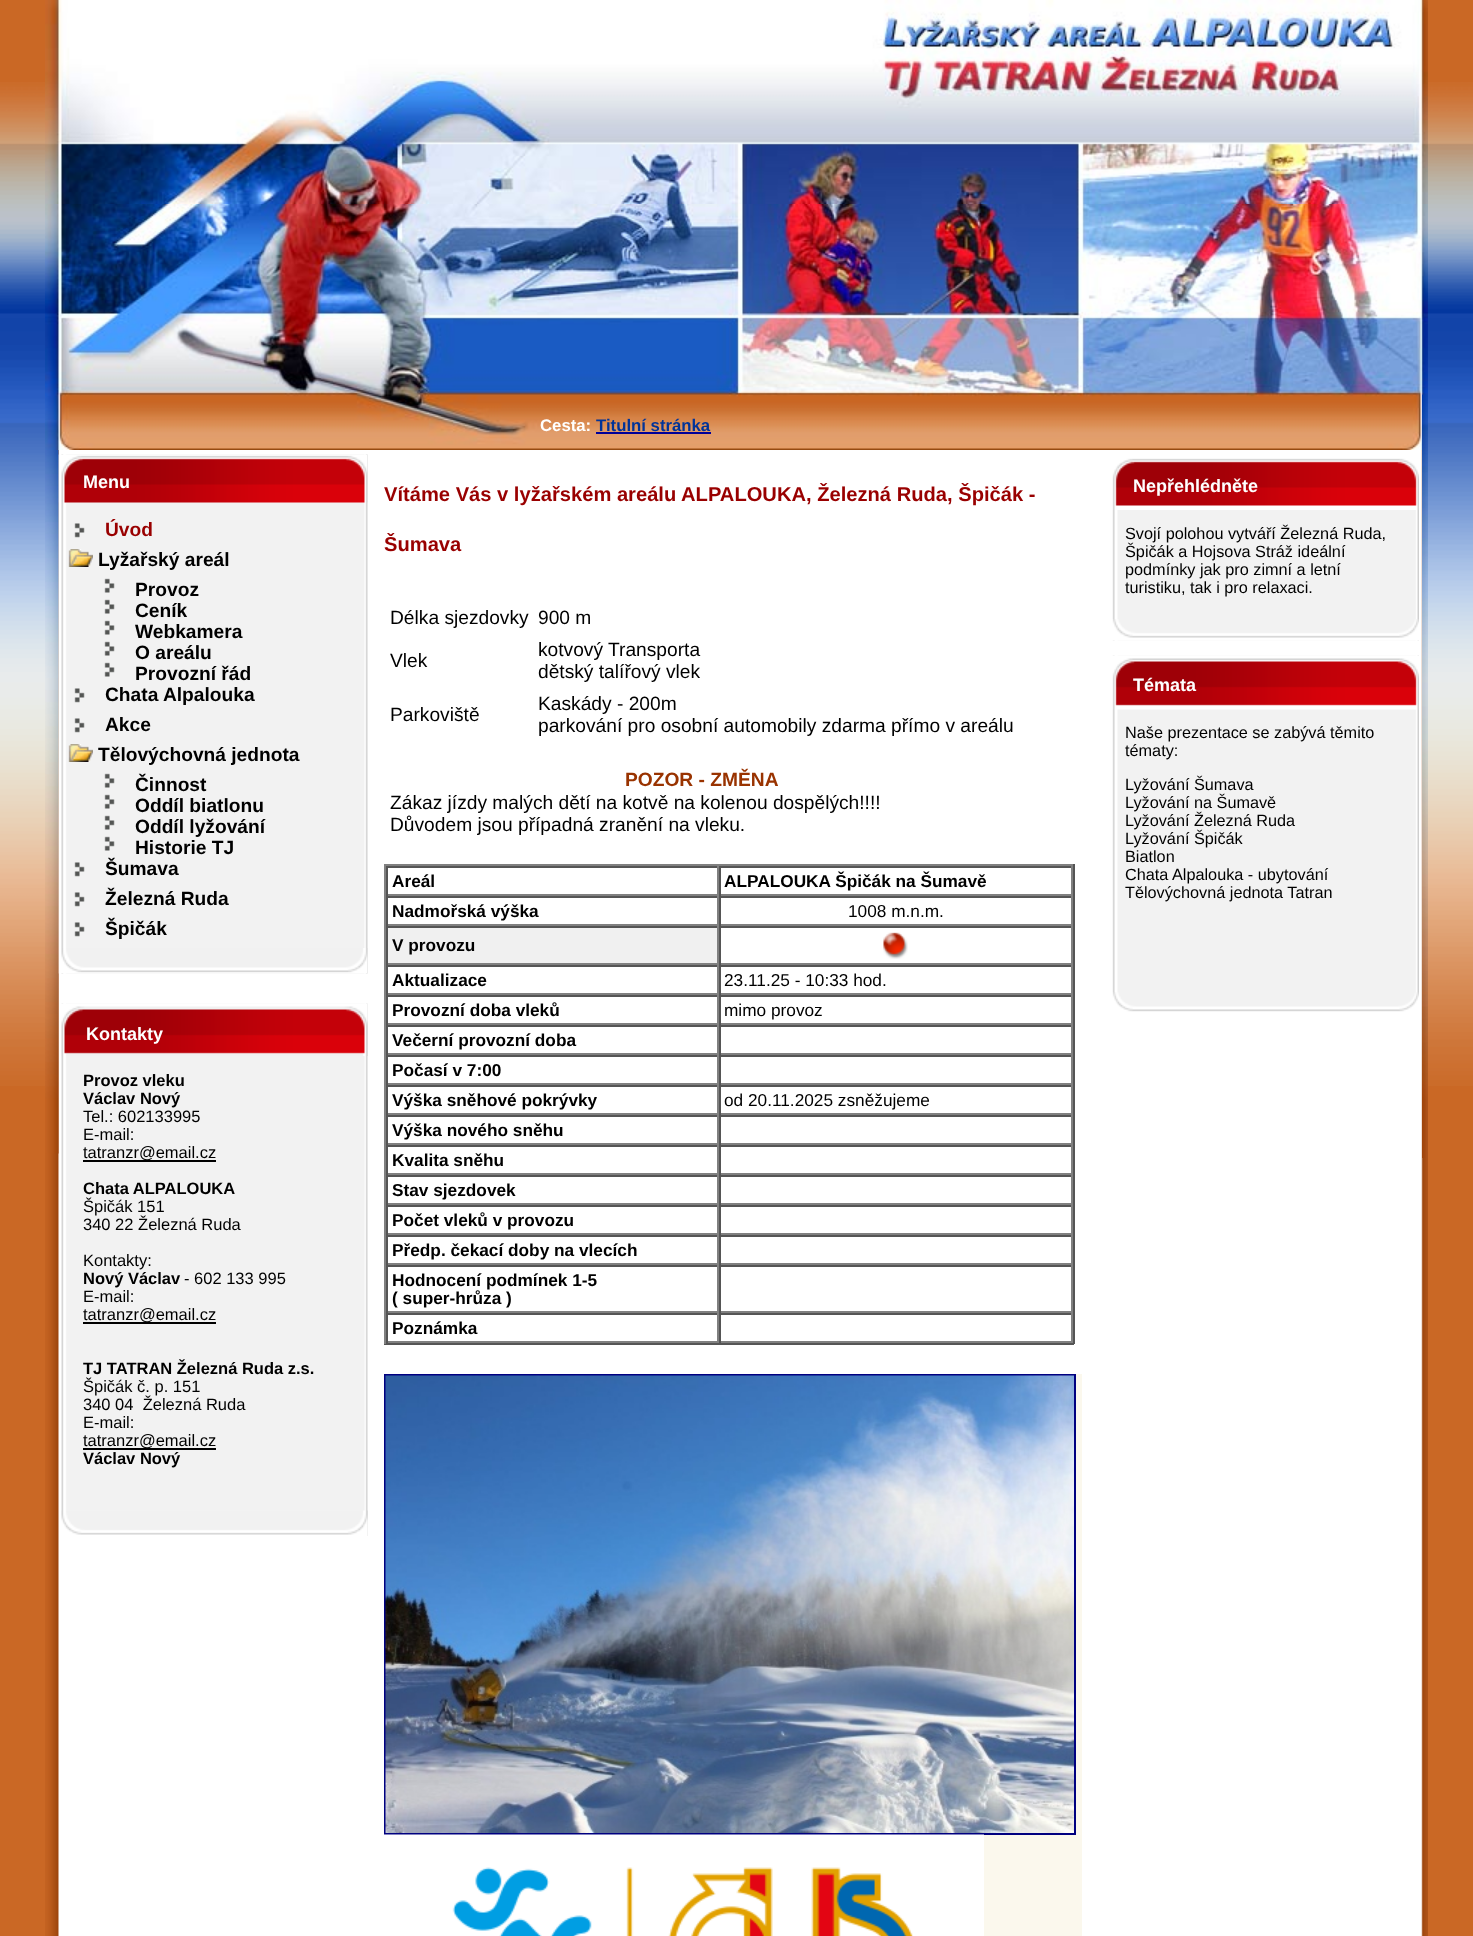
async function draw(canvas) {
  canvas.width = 1473
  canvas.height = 1936
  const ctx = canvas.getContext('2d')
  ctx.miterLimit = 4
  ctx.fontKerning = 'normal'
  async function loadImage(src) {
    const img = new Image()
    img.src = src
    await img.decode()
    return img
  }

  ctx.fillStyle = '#ca6825'
  ctx.fillRect(0, 0, 1473, 1936)
  ctx.drawImage(await loadImage('image0.png'), 0, 82, 1473, 1004)
  ctx.drawImage(await loadImage('image1.png'), 45, 0, 1383, 204)
  ctx.drawImage(await loadImage('image2.png'), 45, 204, 1383, 246)
  ctx.font = 'bold 16.75px Liberation Sans'
  ctx.fillStyle = '#fff'
  ctx.fillText('Cesta:', 540, 431)
  ctx.fillStyle = '#039'
  ctx.fillText('Titulní stránka', 596, 431)
  ctx.fillStyle = '#009'
  ctx.fillRect(596, 432, 115, 2)
  ctx.drawImage(await loadImage('image3.png'), 45, 450, 1383, 1486)
  ctx.drawImage(await loadImage('image6.png'), 58, 454, 310, 520)
  ctx.drawImage(await loadImage('image7.png'), 58, 454, 310, 49)
  ctx.drawImage(await loadImage('image4.png'), 45, 450, 14, 704)
  ctx.drawImage(await loadImage('image5.png'), 1422, 394, 6, 764)
  ctx.font = 'bold 18px Liberation Sans'
  ctx.fillStyle = '#fff'
  ctx.fillText('Menu', 83, 488)
  ctx.drawImage(await loadImage('image8.png'), 61, 948, 307, 26)
  ctx.drawImage(await loadImage('image9.png'), 74, 523, 11, 15)
  ctx.font = 'bold 19.2px Liberation Sans'
  ctx.fillStyle = '#900'
  ctx.fillText('Úvod', 105, 536)
  ctx.drawImage(await loadImage('image10.png'), 68, 549, 25, 18)
  ctx.fillStyle = '#000'
  ctx.fillText('Lyžařský areál', 98, 566)
  ctx.drawImage(await loadImage('image11.png'), 104, 578, 11, 15)
  ctx.fillText('Provoz', 135, 596)
  ctx.drawImage(await loadImage('image11.png'), 104, 599, 11, 15)
  ctx.fillText('Ceník', 135, 617)
  ctx.drawImage(await loadImage('image11.png'), 104, 620, 11, 15)
  ctx.fillText('Webkamera', 135, 638)
  ctx.drawImage(await loadImage('image11.png'), 104, 641, 11, 15)
  ctx.fillText('O areálu', 135, 659)
  ctx.drawImage(await loadImage('image11.png'), 104, 662, 11, 15)
  ctx.fillText('Provozní řád', 135, 680)
  ctx.drawImage(await loadImage('image9.png'), 74, 688, 11, 15)
  ctx.fillText('Chata Alpalouka', 105, 701)
  ctx.drawImage(await loadImage('image9.png'), 74, 718, 11, 15)
  ctx.fillText('Akce', 105, 731)
  ctx.drawImage(await loadImage('image10.png'), 68, 744, 25, 18)
  ctx.fillText('Tělovýchovná jednota', 98, 761)
  ctx.drawImage(await loadImage('image11.png'), 104, 773, 11, 15)
  ctx.fillText('Činnost', 135, 791)
  ctx.drawImage(await loadImage('image11.png'), 104, 794, 11, 15)
  ctx.fillText('Oddíl biatlonu', 135, 812)
  ctx.drawImage(await loadImage('image11.png'), 104, 815, 11, 15)
  ctx.fillText('Oddíl lyžování', 135, 833)
  ctx.drawImage(await loadImage('image11.png'), 104, 836, 11, 15)
  ctx.fillText('Historie TJ', 135, 854)
  ctx.drawImage(await loadImage('image9.png'), 74, 862, 11, 15)
  ctx.fillText('Šumava', 105, 875)
  ctx.drawImage(await loadImage('image9.png'), 74, 892, 11, 15)
  ctx.fillText('Železná Ruda', 105, 905)
  ctx.drawImage(await loadImage('image9.png'), 74, 922, 11, 15)
  ctx.fillText('Špičák', 105, 935)
  ctx.drawImage(await loadImage('image12.png'), 60, 1003, 309, 533)
  ctx.drawImage(await loadImage('image13.png'), 61, 1003, 307, 53)
  ctx.font = 'bold 18px Liberation Sans'
  ctx.fillStyle = '#fff'
  ctx.fillText('Kontakty', 86, 1040)
  ctx.font = 'bold 16.5px Liberation Sans'
  ctx.fillStyle = '#000'
  ctx.fillText('Provoz vleku', 83, 1086)
  ctx.fillText('Václav Nový', 83, 1104)
  ctx.font = '16.5px Liberation Sans'
  ctx.fillText('Tel.: 602133995', 83, 1122)
  ctx.fillText('E-mail:', 83, 1140)
  ctx.fillRect(83, 1160, 133, 2)
  ctx.fillText('tatranzr@email.cz', 83, 1158)
  ctx.font = 'bold 16.5px Liberation Sans'
  ctx.fillText('Chata ALPALOUKA', 83, 1194)
  ctx.font = '16.5px Liberation Sans'
  ctx.fillText('Špičák 151', 83, 1212)
  ctx.fillText('340 22 Železná Ruda', 83, 1230)
  ctx.fillText('Kontakty:', 83, 1266)
  ctx.font = 'bold 16.5px Liberation Sans'
  ctx.fillText('Nový Václav', 83, 1284)
  ctx.font = '16.5px Liberation Sans'
  ctx.fillText('- 602 133 995', 184, 1284)
  ctx.fillText('E-mail:', 83, 1302)
  ctx.fillRect(83, 1322, 133, 2)
  ctx.fillText('tatranzr@email.cz', 83, 1320)
  ctx.font = 'bold 16.5px Liberation Sans'
  ctx.fillText('TJ TATRAN Železná Ruda z.s.', 83, 1374)
  ctx.font = '16.5px Liberation Sans'
  ctx.fillText('Špičák č. p. 151', 83, 1392)
  ctx.fillText('340 04  Železná Ruda', 83, 1410)
  ctx.fillText('E-mail:', 83, 1428)
  ctx.fillRect(83, 1448, 133, 2)
  ctx.fillText('tatranzr@email.cz', 83, 1446)
  ctx.font = 'bold 16.5px Liberation Sans'
  ctx.fillText('Václav Nový', 83, 1464)
  ctx.drawImage(await loadImage('image14.png'), 61, 1510, 307, 26)
  ctx.font = 'bold 20.15px Liberation Sans'
  ctx.fillStyle = '#900'
  ctx.fillText('Vítáme Vás v lyžařském areálu ALPALOUKA, Železná Ruda, Špičák -', 384, 501)
  ctx.fillText('Šumava', 384, 551)
  ctx.font = '19.2px Liberation Sans'
  ctx.fillStyle = '#000'
  ctx.fillText('Délka sjezdovky', 390, 624)
  ctx.fillText('900 m', 538, 624)
  ctx.fillText('Vlek', 390, 667)
  ctx.fillText('kotvový Transporta', 538, 656)
  ctx.fillText('dětský talířový vlek', 538, 678)
  ctx.fillText('Parkoviště', 390, 721)
  ctx.fillText('Kaskády - 200m', 538, 710)
  ctx.fillText('parkování pro osobní automobily zdarma přímo v areálu', 538, 732)
  ctx.font = 'bold 19.2px Liberation Sans'
  ctx.fillStyle = '#930'
  ctx.fillText('POZOR - ZMĚNA', 625, 786)
  ctx.font = '19.2px Liberation Sans'
  ctx.fillStyle = '#000'
  ctx.fillText('Zákaz jízdy malých dětí na kotvě na kolenou dospělých!!!!', 390, 809)
  ctx.fillText('Důvodem jsou případná zranění na vleku.', 390, 831)
  ctx.fillStyle = '#808080'
  ctx.fillRect(384, 864, 690, 2)
  ctx.fillStyle = '#555'
  ctx.fillRect(1073, 864, 2, 480)
  ctx.fillRect(384, 1343, 690, 2)
  ctx.fillStyle = '#808080'
  ctx.fillRect(384, 864, 2, 480)
  ctx.fillStyle = '#555'
  ctx.fillRect(386, 866, 687, 2)
  ctx.fillStyle = '#808080'
  ctx.fillRect(717, 866, 2, 30)
  ctx.fillRect(386, 894, 333, 2)
  ctx.fillStyle = '#555'
  ctx.fillRect(386, 866, 2, 30)
  ctx.font = 'bold 17.25px Liberation Sans'
  ctx.fillStyle = '#000'
  ctx.fillText('Areál', 392, 887)
  ctx.fillStyle = '#808080'
  ctx.fillRect(1071, 866, 2, 30)
  ctx.fillRect(719, 894, 354, 2)
  ctx.fillStyle = '#555'
  ctx.fillRect(719, 866, 2, 30)
  ctx.fillStyle = '#000'
  ctx.fillText('ALPALOUKA Špičák na Šumavě', 724, 887)
  ctx.fillStyle = '#555'
  ctx.fillRect(386, 896, 687, 2)
  ctx.fillStyle = '#808080'
  ctx.fillRect(717, 896, 2, 30)
  ctx.fillRect(386, 924, 333, 2)
  ctx.fillStyle = '#555'
  ctx.fillRect(386, 896, 2, 30)
  ctx.fillStyle = '#000'
  ctx.fillText('Nadmořská výška', 392, 917)
  ctx.fillStyle = '#808080'
  ctx.fillRect(1071, 896, 2, 30)
  ctx.fillRect(719, 924, 354, 2)
  ctx.fillStyle = '#555'
  ctx.fillRect(719, 896, 2, 30)
  ctx.font = '17.25px Liberation Sans'
  ctx.fillStyle = '#000'
  ctx.fillText('1008 m.n.m.', 848, 917)
  ctx.fillStyle = '#f0f0f0'
  ctx.fillRect(388, 928, 329, 35)
  ctx.fillStyle = '#555'
  ctx.fillRect(386, 926, 687, 2)
  ctx.fillStyle = '#808080'
  ctx.fillRect(717, 926, 2, 39)
  ctx.fillRect(386, 963, 333, 2)
  ctx.fillStyle = '#555'
  ctx.fillRect(386, 926, 2, 39)
  ctx.font = 'bold 17.25px Liberation Sans'
  ctx.fillStyle = '#000'
  ctx.fillText('V provozu', 392, 951)
  ctx.fillStyle = '#808080'
  ctx.fillRect(1071, 926, 2, 39)
  ctx.fillRect(719, 963, 354, 2)
  ctx.fillStyle = '#555'
  ctx.fillRect(719, 926, 2, 39)
  ctx.drawImage(await loadImage('image15.png'), 883, 932, 25, 27)
  ctx.fillRect(386, 965, 687, 2)
  ctx.fillStyle = '#808080'
  ctx.fillRect(717, 965, 2, 30)
  ctx.fillRect(386, 993, 333, 2)
  ctx.fillStyle = '#555'
  ctx.fillRect(386, 965, 2, 30)
  ctx.fillStyle = '#000'
  ctx.fillText('Aktualizace', 392, 986)
  ctx.fillStyle = '#808080'
  ctx.fillRect(1071, 965, 2, 30)
  ctx.fillRect(719, 993, 354, 2)
  ctx.fillStyle = '#555'
  ctx.fillRect(719, 965, 2, 30)
  ctx.font = '17.25px Liberation Sans'
  ctx.fillStyle = '#000'
  ctx.fillText('23.11.25 - 10:33 hod.', 724, 986)
  ctx.fillStyle = '#555'
  ctx.fillRect(386, 995, 687, 2)
  ctx.fillStyle = '#808080'
  ctx.fillRect(717, 995, 2, 30)
  ctx.fillRect(386, 1023, 333, 2)
  ctx.fillStyle = '#555'
  ctx.fillRect(386, 995, 2, 30)
  ctx.font = 'bold 17.25px Liberation Sans'
  ctx.fillStyle = '#000'
  ctx.fillText('Provozní doba vleků', 392, 1016)
  ctx.fillStyle = '#808080'
  ctx.fillRect(1071, 995, 2, 30)
  ctx.fillRect(719, 1023, 354, 2)
  ctx.fillStyle = '#555'
  ctx.fillRect(719, 995, 2, 30)
  ctx.font = '17.25px Liberation Sans'
  ctx.fillStyle = '#000'
  ctx.fillText('mimo provoz', 724, 1016)
  ctx.fillStyle = '#555'
  ctx.fillRect(386, 1025, 687, 2)
  ctx.fillStyle = '#808080'
  ctx.fillRect(717, 1025, 2, 30)
  ctx.fillRect(386, 1053, 333, 2)
  ctx.fillStyle = '#555'
  ctx.fillRect(386, 1025, 2, 30)
  ctx.font = 'bold 17.25px Liberation Sans'
  ctx.fillStyle = '#000'
  ctx.fillText('Večerní provozní doba', 392, 1046)
  ctx.fillStyle = '#808080'
  ctx.fillRect(1071, 1025, 2, 30)
  ctx.fillRect(719, 1053, 354, 2)
  ctx.fillStyle = '#555'
  ctx.fillRect(719, 1025, 2, 30)
  ctx.fillRect(386, 1055, 687, 2)
  ctx.fillStyle = '#808080'
  ctx.fillRect(717, 1055, 2, 30)
  ctx.fillRect(386, 1083, 333, 2)
  ctx.fillStyle = '#555'
  ctx.fillRect(386, 1055, 2, 30)
  ctx.fillStyle = '#000'
  ctx.fillText('Počasí v 7:00', 392, 1076)
  ctx.fillStyle = '#808080'
  ctx.fillRect(1071, 1055, 2, 30)
  ctx.fillRect(719, 1083, 354, 2)
  ctx.fillStyle = '#555'
  ctx.fillRect(719, 1055, 2, 30)
  ctx.fillRect(386, 1085, 687, 2)
  ctx.fillStyle = '#808080'
  ctx.fillRect(717, 1085, 2, 30)
  ctx.fillRect(386, 1113, 333, 2)
  ctx.fillStyle = '#555'
  ctx.fillRect(386, 1085, 2, 30)
  ctx.fillStyle = '#000'
  ctx.fillText('Výška sněhové pokrývky', 392, 1106)
  ctx.fillStyle = '#808080'
  ctx.fillRect(1071, 1085, 2, 30)
  ctx.fillRect(719, 1113, 354, 2)
  ctx.fillStyle = '#555'
  ctx.fillRect(719, 1085, 2, 30)
  ctx.font = '17.25px Liberation Sans'
  ctx.fillStyle = '#000'
  ctx.fillText('od 20.11.2025 zsněžujeme', 724, 1106)
  ctx.fillStyle = '#555'
  ctx.fillRect(386, 1115, 687, 2)
  ctx.fillStyle = '#808080'
  ctx.fillRect(717, 1115, 2, 30)
  ctx.fillRect(386, 1143, 333, 2)
  ctx.fillStyle = '#555'
  ctx.fillRect(386, 1115, 2, 30)
  ctx.font = 'bold 17.25px Liberation Sans'
  ctx.fillStyle = '#000'
  ctx.fillText('Výška nového sněhu', 392, 1136)
  ctx.fillStyle = '#808080'
  ctx.fillRect(1071, 1115, 2, 30)
  ctx.fillRect(719, 1143, 354, 2)
  ctx.fillStyle = '#555'
  ctx.fillRect(719, 1115, 2, 30)
  ctx.fillRect(386, 1145, 687, 2)
  ctx.fillStyle = '#808080'
  ctx.fillRect(717, 1145, 2, 30)
  ctx.fillRect(386, 1173, 333, 2)
  ctx.fillStyle = '#555'
  ctx.fillRect(386, 1145, 2, 30)
  ctx.fillStyle = '#000'
  ctx.fillText('Kvalita sněhu', 392, 1166)
  ctx.fillStyle = '#808080'
  ctx.fillRect(1071, 1145, 2, 30)
  ctx.fillRect(719, 1173, 354, 2)
  ctx.fillStyle = '#555'
  ctx.fillRect(719, 1145, 2, 30)
  ctx.fillRect(386, 1175, 687, 2)
  ctx.fillStyle = '#808080'
  ctx.fillRect(717, 1175, 2, 30)
  ctx.fillRect(386, 1203, 333, 2)
  ctx.fillStyle = '#555'
  ctx.fillRect(386, 1175, 2, 30)
  ctx.fillStyle = '#000'
  ctx.fillText('Stav sjezdovek', 392, 1196)
  ctx.fillStyle = '#808080'
  ctx.fillRect(1071, 1175, 2, 30)
  ctx.fillRect(719, 1203, 354, 2)
  ctx.fillStyle = '#555'
  ctx.fillRect(719, 1175, 2, 30)
  ctx.fillRect(386, 1205, 687, 2)
  ctx.fillStyle = '#808080'
  ctx.fillRect(717, 1205, 2, 30)
  ctx.fillRect(386, 1233, 333, 2)
  ctx.fillStyle = '#555'
  ctx.fillRect(386, 1205, 2, 30)
  ctx.fillStyle = '#000'
  ctx.fillText('Počet vleků v provozu', 392, 1226)
  ctx.fillStyle = '#808080'
  ctx.fillRect(1071, 1205, 2, 30)
  ctx.fillRect(719, 1233, 354, 2)
  ctx.fillStyle = '#555'
  ctx.fillRect(719, 1205, 2, 30)
  ctx.fillRect(386, 1235, 687, 2)
  ctx.fillStyle = '#808080'
  ctx.fillRect(717, 1235, 2, 30)
  ctx.fillRect(386, 1263, 333, 2)
  ctx.fillStyle = '#555'
  ctx.fillRect(386, 1235, 2, 30)
  ctx.fillStyle = '#000'
  ctx.fillText('Předp. čekací doby na vlecích', 392, 1256)
  ctx.fillStyle = '#808080'
  ctx.fillRect(1071, 1235, 2, 30)
  ctx.fillRect(719, 1263, 354, 2)
  ctx.fillStyle = '#555'
  ctx.fillRect(719, 1235, 2, 30)
  ctx.fillRect(386, 1265, 687, 2)
  ctx.fillStyle = '#808080'
  ctx.fillRect(717, 1265, 2, 48)
  ctx.fillRect(386, 1311, 333, 2)
  ctx.fillStyle = '#555'
  ctx.fillRect(386, 1265, 2, 48)
  ctx.fillStyle = '#000'
  ctx.fillText('Hodnocení podmínek 1-5', 392, 1286)
  ctx.fillText('( super-hrůza )', 392, 1304)
  ctx.fillStyle = '#808080'
  ctx.fillRect(1071, 1265, 2, 48)
  ctx.fillRect(719, 1311, 354, 2)
  ctx.fillStyle = '#555'
  ctx.fillRect(719, 1265, 2, 48)
  ctx.fillRect(386, 1313, 687, 2)
  ctx.fillStyle = '#808080'
  ctx.fillRect(717, 1313, 2, 30)
  ctx.fillRect(386, 1341, 333, 2)
  ctx.fillStyle = '#555'
  ctx.fillRect(386, 1313, 2, 30)
  ctx.fillStyle = '#000'
  ctx.fillText('Poznámka', 392, 1334)
  ctx.fillStyle = '#808080'
  ctx.fillRect(1071, 1313, 2, 30)
  ctx.fillRect(719, 1341, 354, 2)
  ctx.fillStyle = '#555'
  ctx.fillRect(719, 1313, 2, 30)
  ctx.fillStyle = '#fbf8ed'
  ctx.fillRect(984, 1374, 98, 562)
  ctx.strokeStyle = '#000080'
  ctx.lineWidth = 2
  ctx.strokeRect(385, 1375, 690, 459)
  ctx.drawImage(await loadImage('image16.png'), 385, 1375, 689, 458)
  ctx.drawImage(await loadImage('image17.png'), 384, 1834, 600, 102)
  ctx.drawImage(await loadImage('image18.png'), 1112, 510, 307, 131)
  ctx.drawImage(await loadImage('image19.png'), 1112, 456, 307, 54)
  ctx.font = 'bold 18px Liberation Sans'
  ctx.fillStyle = '#fff'
  ctx.fillText('Nepřehlédněte', 1133, 492)
  ctx.font = '16.25px Liberation Sans'
  ctx.fillStyle = '#000'
  ctx.fillText('Svojí polohou vytváří Železná Ruda,', 1125, 539)
  ctx.fillText('Špičák a Hojsova Stráž ideální', 1125, 557)
  ctx.fillText('podmínky jak pro zimní a letní', 1125, 575)
  ctx.fillText('turistiku, tak i pro relaxaci.', 1125, 593)
  ctx.drawImage(await loadImage('image20.png'), 1112, 619, 307, 22)
  ctx.drawImage(await loadImage('image21.png'), 1112, 655, 307, 337)
  ctx.drawImage(await loadImage('image22.png'), 1112, 655, 307, 55)
  ctx.font = 'bold 18px Liberation Sans'
  ctx.fillStyle = '#fff'
  ctx.fillText('Témata', 1133, 691)
  ctx.font = '16.25px Liberation Sans'
  ctx.fillStyle = '#000'
  ctx.fillText('Naše prezentace se zabývá těmito', 1125, 738)
  ctx.fillText('tématy:', 1125, 756)
  ctx.fillText('Lyžování Šumava', 1125, 790)
  ctx.fillText('Lyžování na Šumavě', 1125, 808)
  ctx.fillText('Lyžování Železná Ruda', 1125, 826)
  ctx.fillText('Lyžování Špičák', 1125, 844)
  ctx.fillText('Biatlon', 1125, 862)
  ctx.fillText('Chata Alpalouka - ubytování', 1125, 880)
  ctx.fillText('Tělovýchovná jednota Tatran', 1125, 898)
  ctx.drawImage(await loadImage('image23.png'), 1112, 992, 307, 22)
}

draw(document.querySelector('canvas'))
